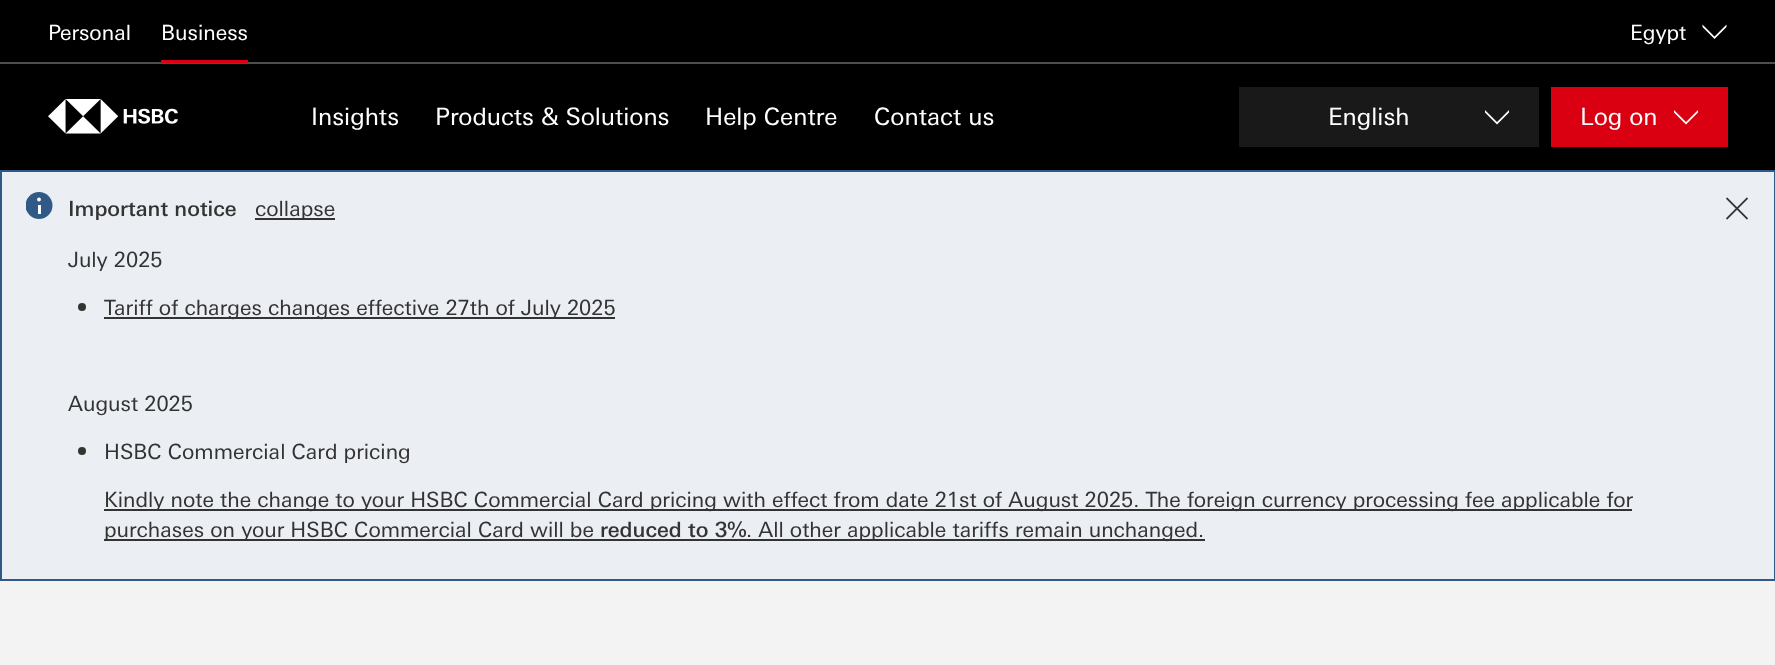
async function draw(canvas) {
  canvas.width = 1775
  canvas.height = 665
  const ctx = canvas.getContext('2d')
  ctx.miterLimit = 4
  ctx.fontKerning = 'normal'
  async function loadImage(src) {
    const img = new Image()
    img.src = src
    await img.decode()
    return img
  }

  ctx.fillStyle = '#f3f3f3'
  ctx.fillRect(0, 0, 1775, 665)
  ctx.fillStyle = '#000'
  ctx.fillRect(0, 0, 1775, 170)
  ctx.fillStyle = '#4d4d4d'
  ctx.fillRect(0, 62, 1775, 2)
  ctx.font = '21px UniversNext'
  ctx.fillStyle = '#fff'
  ctx.fillText('Personal', 48, 40)
  ctx.fillText('Business', 161, 40)
  ctx.fillStyle = '#db0011'
  ctx.fillRect(161, 60, 87, 3)
  ctx.fillStyle = '#fff'
  ctx.fillText('Egypt', 1630, 40)
  ctx.beginPath()
  ctx.moveTo(1726.5, 24.5)
  ctx.lineTo(1714.5, 36.5)
  ctx.lineTo(1702.5, 24.5)
  ctx.lineTo(1702.5, 27)
  ctx.lineTo(1714.5, 39)
  ctx.lineTo(1726.5, 27)
  ctx.closePath()
  ctx.fill()
  ctx.drawImage(await loadImage('image0.png'), 48, 99, 130, 35)
  ctx.font = '24px UniversNext'
  ctx.fillText('Insights', 311, 125)
  ctx.fillText('Products & Solutions', 435, 125)
  ctx.fillText('Help Centre', 705, 125)
  ctx.fillText('Contact us', 874, 125)
  ctx.fillStyle = '#191919'
  ctx.fillRect(1239, 87, 300, 60)
  ctx.fillStyle = '#fff'
  ctx.fillText('English', 1328, 125)
  ctx.beginPath()
  ctx.moveTo(1509, 110)
  ctx.lineTo(1497, 122)
  ctx.lineTo(1485, 110)
  ctx.lineTo(1485, 112.5)
  ctx.lineTo(1497, 124.5)
  ctx.lineTo(1509, 112.5)
  ctx.closePath()
  ctx.fill()
  ctx.fillStyle = '#db0011'
  ctx.fillRect(1551, 87, 177, 60)
  ctx.fillStyle = '#fff'
  ctx.fillText('Log on', 1580, 125)
  ctx.beginPath()
  ctx.moveTo(1698, 110)
  ctx.lineTo(1686, 122)
  ctx.lineTo(1674, 110)
  ctx.lineTo(1674, 112.5)
  ctx.lineTo(1686, 124.5)
  ctx.lineTo(1698, 112.5)
  ctx.closePath()
  ctx.fill()
  ctx.fillStyle = '#ebeff4'
  ctx.beginPath()
  ctx.rect(1, 171, 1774, 409)
  ctx.fill()
  ctx.strokeStyle = '#305a85'
  ctx.lineWidth = 2
  ctx.stroke()
  ctx.save()
  ctx.beginPath()
  ctx.rect(26, 192, 27, 27)
  ctx.clip()
  ctx.fillStyle = '#305a85'
  ctx.beginPath()
  ctx.arc(39, 205.5, 13.5, 0, 2 * Math.PI)
  ctx.fill()
  ctx.restore()
  ctx.fillStyle = '#fff'
  ctx.beginPath()
  ctx.arc(39, 199.5, 1.9, 0, 2 * Math.PI)
  ctx.fill()
  ctx.fillRect(38, 205, 3, 9)
  ctx.font = '500 21px UniversNext'
  ctx.fillStyle = '#333'
  ctx.fillText('Important notice', 68, 216)
  ctx.fillRect(255, 218, 80, 2)
  ctx.font = '21px UniversNext'
  ctx.fillText('collapse', 255, 216)
  ctx.drawImage(await loadImage('image1.png'), 1726, 197, 22, 23)
  ctx.fillText('July 2025', 68, 267)
  ctx.beginPath()
  ctx.arc(82, 307, 4, 0, 2 * Math.PI)
  ctx.fill()
  ctx.fillRect(104, 317, 511, 2)
  ctx.fillText('Tariff of charges changes effective 27th of July 2025', 104, 315)
  ctx.fillText('August 2025', 68, 411)
  ctx.beginPath()
  ctx.arc(82, 451, 4, 0, 2 * Math.PI)
  ctx.fill()
  ctx.fillText('HSBC Commercial Card pricing', 104, 459)
  ctx.fillRect(104, 509, 1528, 2)
  ctx.fillText('Kindly note the change to your HSBC Commercial Card pricing with effect from date 21st of August 2025. The foreign currency processing fee applicable for', 104, 507)
  ctx.fillRect(104, 539, 1101, 2)
  ctx.fillText('purchases on your HSBC Commercial Card will be', 104, 537)
  ctx.font = '500 21px UniversNext'
  ctx.fillText('reduced to 3%', 600, 537)
  ctx.font = '21px UniversNext'
  ctx.fillText('. All other applicable tariffs remain unchanged.', 746, 537)
}

draw(document.querySelector('canvas'))
